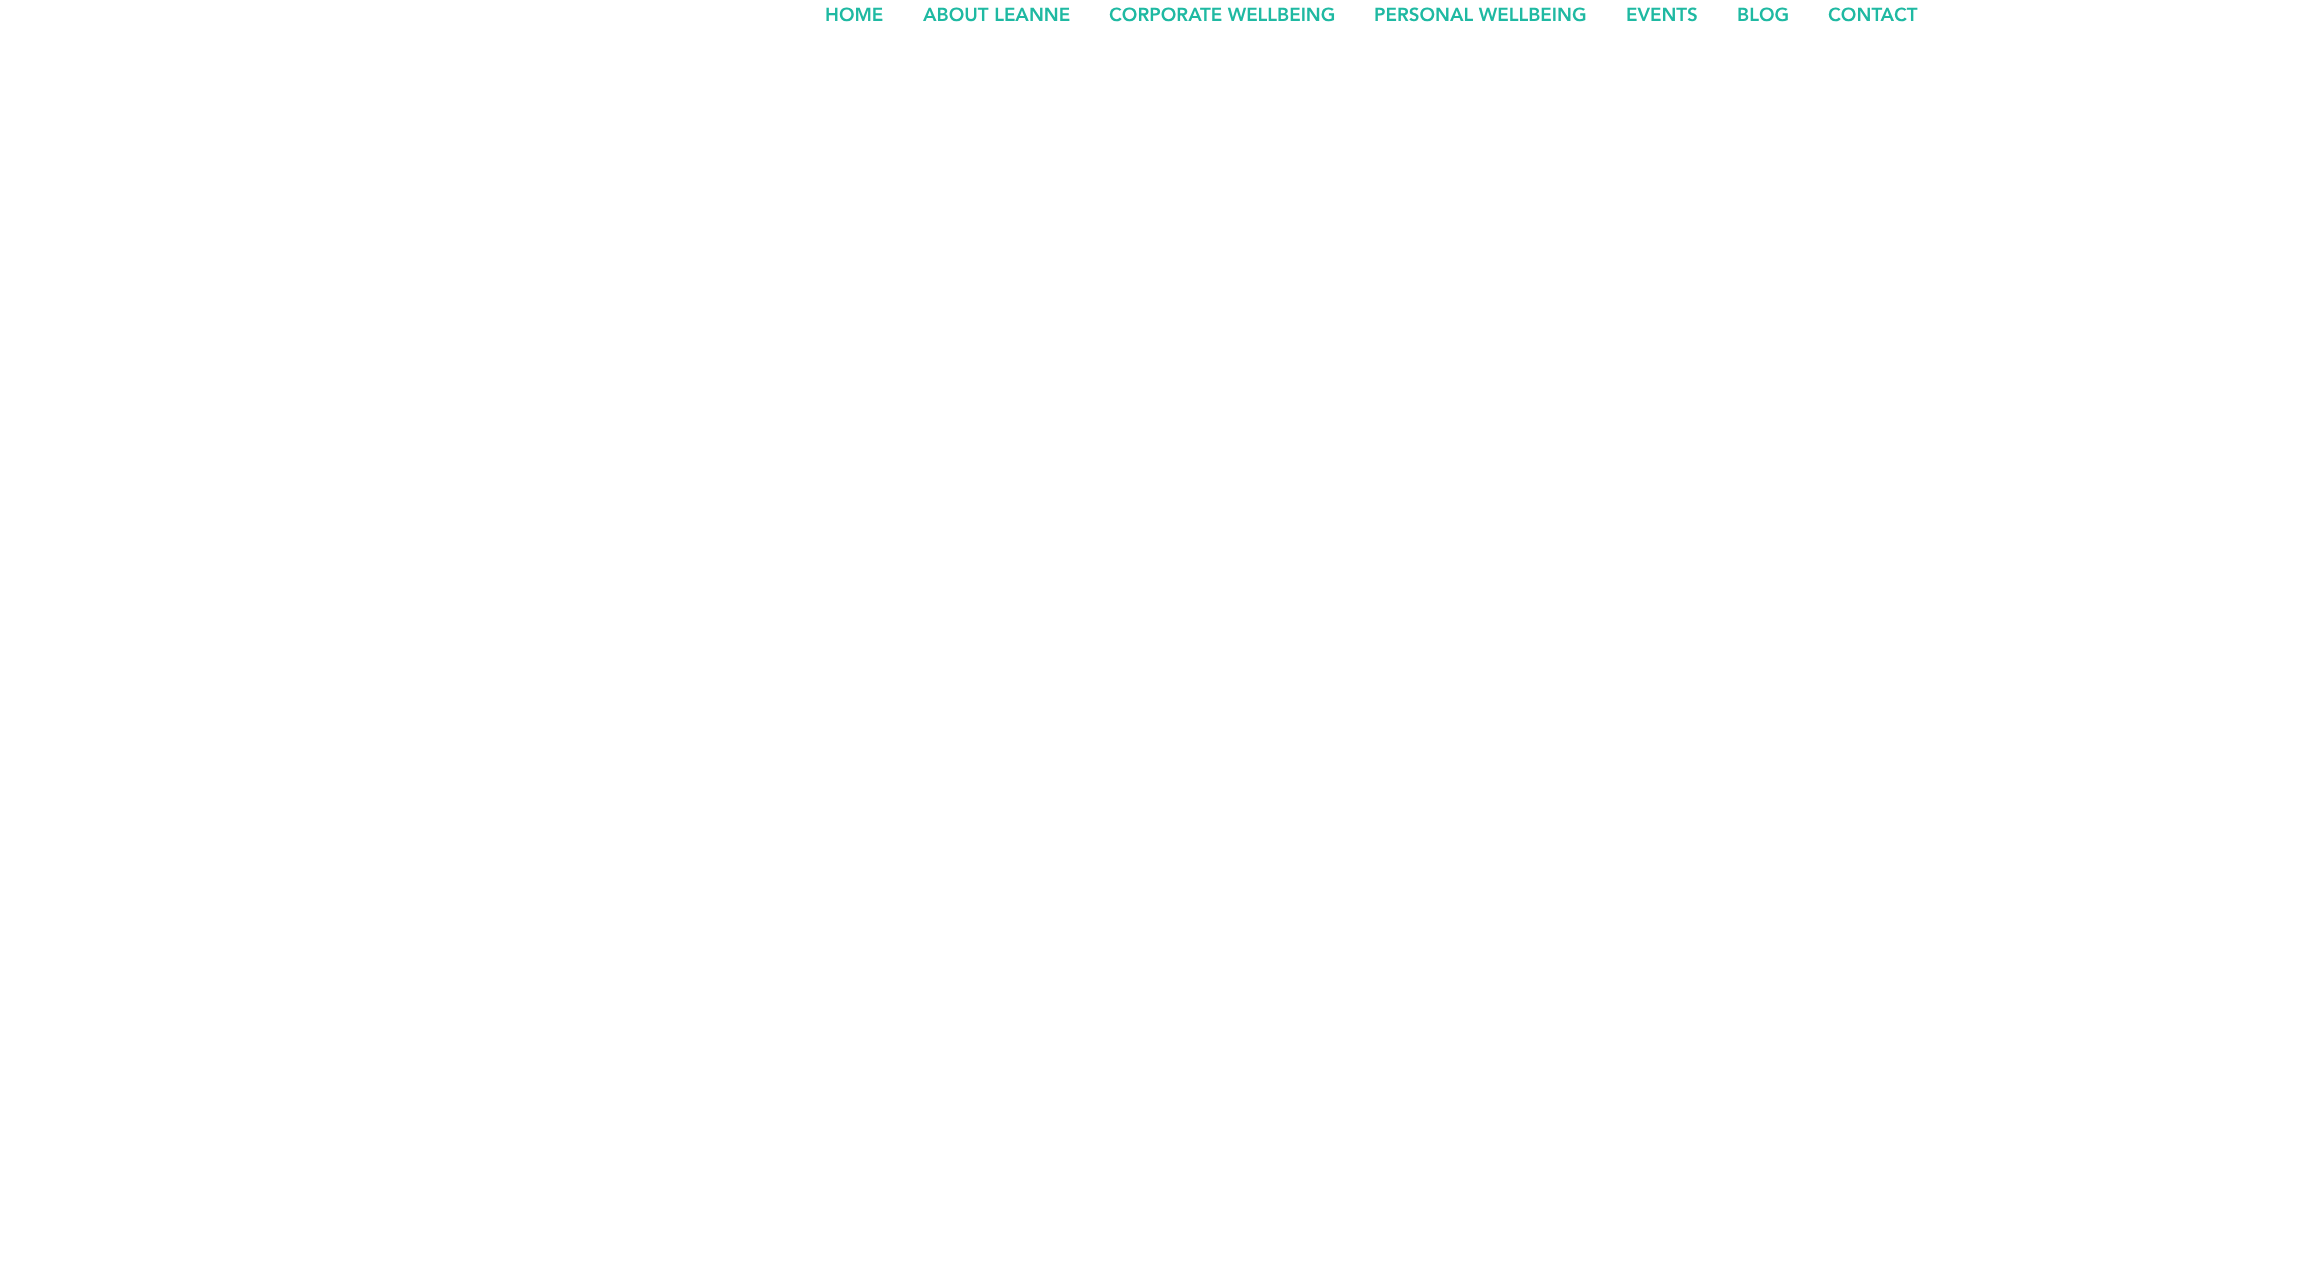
async function draw(canvas) {
  canvas.width = 2310
  canvas.height = 1268
  const ctx = canvas.getContext('2d')
  ctx.miterLimit = 4
  ctx.fontKerning = 'normal'

  ctx.fillStyle = '#fff'
  ctx.fillRect(0, 0, 2310, 1268)
  ctx.font = '900 18.75px "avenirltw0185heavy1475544"'
  ctx.fillStyle = '#1fb9a2'
  ctx.fillText('HOME', 825, 21)
  ctx.fillText('ABOUT LEANNE', 923, 21)
  ctx.fillText('CORPORATE WELLBEING', 1109, 21)
  ctx.fillText('PERSONAL WELLBEING', 1374, 21)
  ctx.fillText('EVENTS', 1626, 21)
  ctx.fillText('BLOG', 1737, 21)
  ctx.fillText('CONTACT', 1828, 21)
}

draw(document.querySelector('canvas'))
